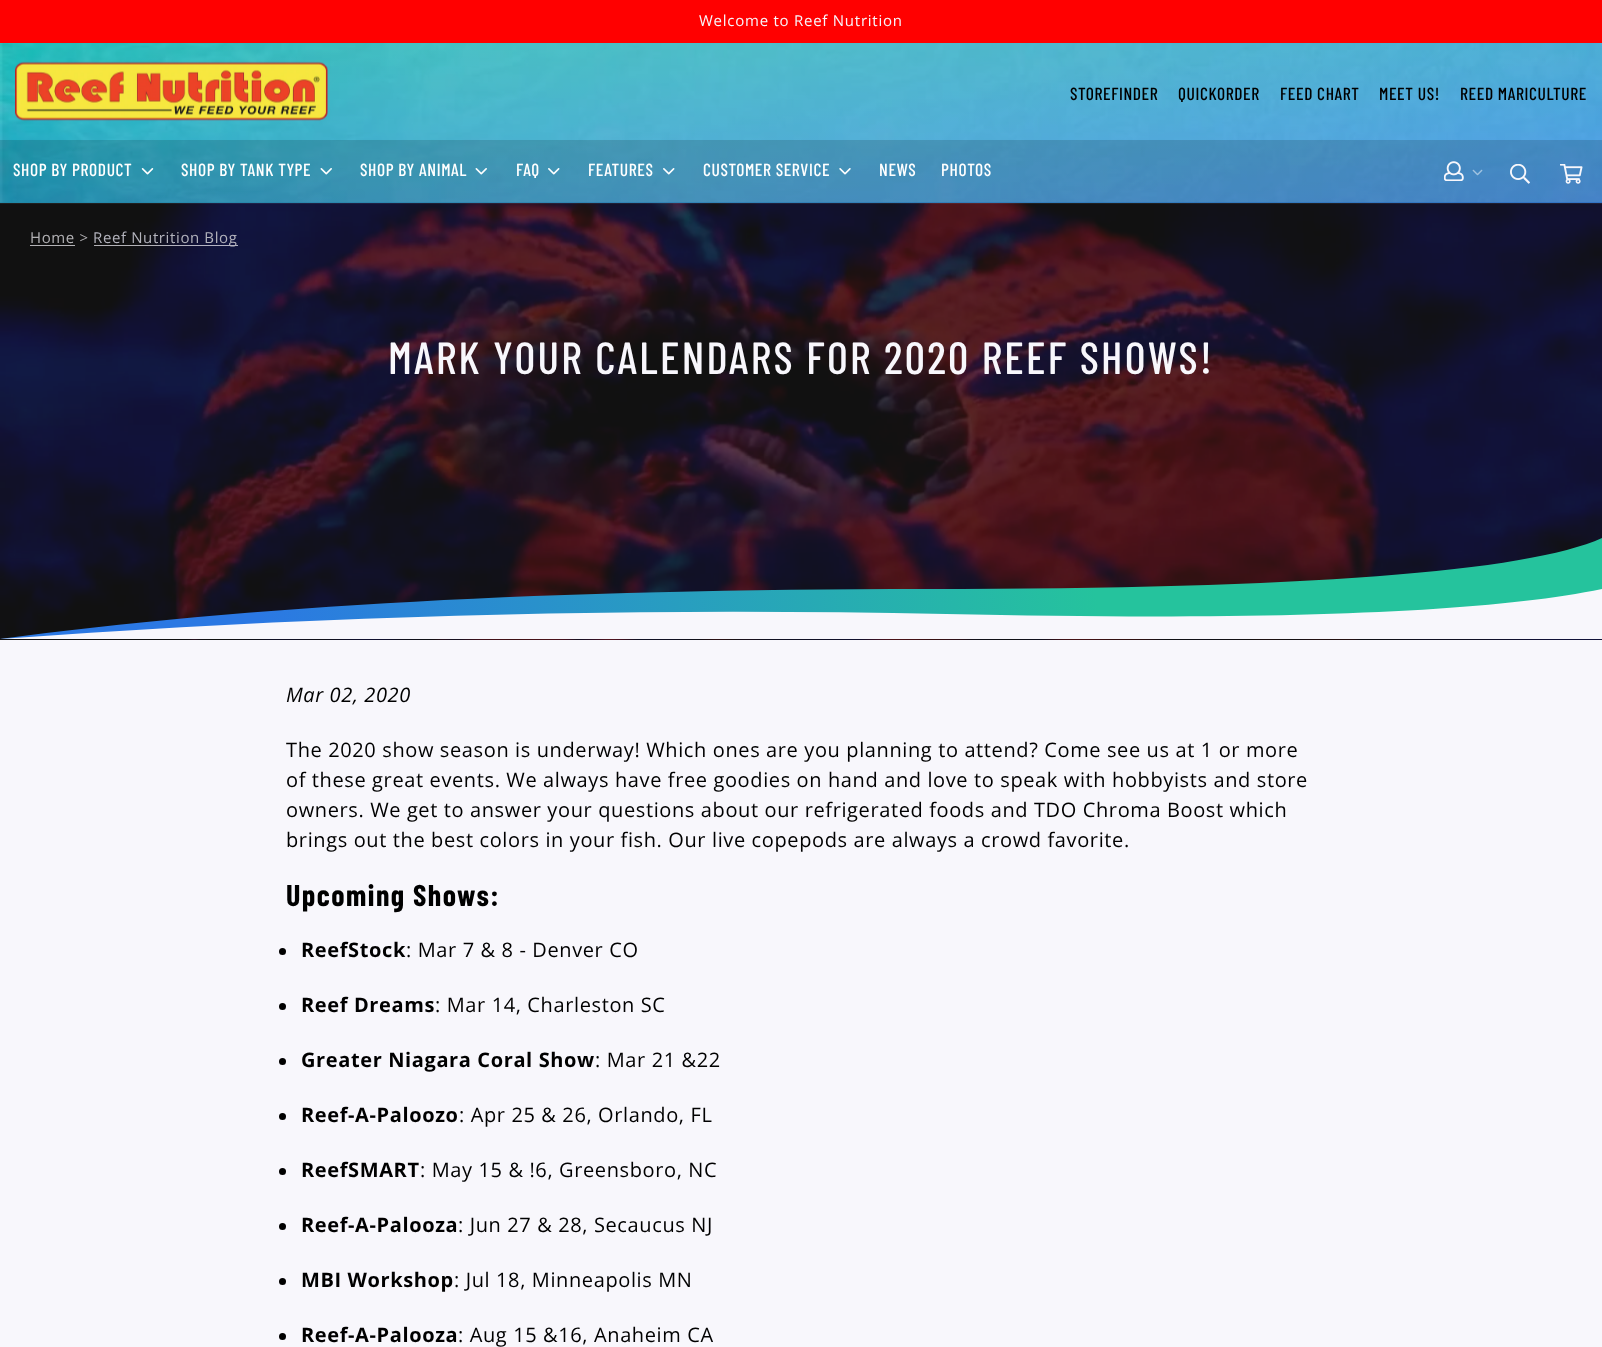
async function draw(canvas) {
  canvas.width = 1602
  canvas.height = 1347
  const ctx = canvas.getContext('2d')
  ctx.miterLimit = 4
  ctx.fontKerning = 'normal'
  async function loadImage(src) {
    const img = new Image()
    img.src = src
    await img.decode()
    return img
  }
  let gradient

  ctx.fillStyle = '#f8f7fc'
  ctx.fillRect(0, 0, 1602, 1347)
  gradient = ctx.createLinearGradient(776, -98, 826, 301)
  gradient.addColorStop(0, '#25c39d')
  gradient.addColorStop(1, '#2b78e3')
  ctx.fillStyle = gradient
  ctx.fillRect(0, 43, 1602, 160)
  ctx.fillStyle = '#f00'
  ctx.fillRect(0, 0, 1602, 43)
  ctx.letterSpacing = '0.75px'
  ctx.font = '15px Open Sans'
  ctx.fillStyle = '#f8f7fc'
  ctx.fillText('Welcome to Reef Nutrition', 699, 26)
  ctx.drawImage(await loadImage('image1.png'), 0, 43, 1602, 160)
  ctx.drawImage(await loadImage('image0.png'), 15, 61, 313, 60)
  ctx.letterSpacing = '0.62px'
  ctx.font = '500 17.5px Barlow Condensed'
  ctx.fillStyle = '#000'
  ctx.fillText('STOREFINDER', 1070, 100)
  ctx.fillText('QUICKORDER', 1178, 100)
  ctx.fillText('FEED CHART', 1280, 100)
  ctx.fillText('MEET US!', 1379, 100)
  ctx.fillText('REED MARICULTURE', 1460, 100)
  ctx.fillStyle = '#00000026'
  ctx.fillRect(0, 140, 1602, 63)
  ctx.fillStyle = '#fff'
  ctx.fillText('SHOP BY PRODUCT', 13, 176)
  ctx.drawImage(await loadImage('image2.png'), 141, 168, 13, 7)
  ctx.fillText('SHOP BY TANK TYPE', 181, 176)
  ctx.drawImage(await loadImage('image3.png'), 320, 168, 12, 7)
  ctx.fillText('SHOP BY ANIMAL', 360, 176)
  ctx.drawImage(await loadImage('image4.png'), 475, 168, 12, 7)
  ctx.fillText('FAQ', 516, 176)
  ctx.drawImage(await loadImage('image5.png'), 548, 168, 12, 7)
  ctx.fillText('FEATURES', 588, 176)
  ctx.drawImage(await loadImage('image6.png'), 663, 168, 12, 7)
  ctx.fillText('CUSTOMER SERVICE', 703, 176)
  ctx.drawImage(await loadImage('image7.png'), 839, 168, 12, 7)
  ctx.fillText('NEWS', 879, 176)
  ctx.fillText('PHOTOS', 941, 176)
  ctx.drawImage(await loadImage('image8.png'), 1444, 161, 20, 20)
  ctx.drawImage(await loadImage('image9.png'), 1472, 169, 11, 7)
  ctx.drawImage(await loadImage('image10.png'), 1510, 164, 20, 20)
  ctx.drawImage(await loadImage('image11.png'), 1560, 164, 23, 20)
  ctx.drawImage(await loadImage('image12.png'), 0, 203, 1602, 437)
  ctx.font = '15px Open Sans'
  ctx.fillStyle = '#b3b2b5'
  ctx.fillText('Home >', 30, 243)
  ctx.fillRect(30, 245, 45, 1)
  ctx.fillStyle = '#f8f7fcb3'
  ctx.fillRect(94, 245, 144, 1)
  ctx.fillStyle = '#b3b3bc'
  ctx.fillText('Reef Nutrition Blog', 93, 243)
  ctx.letterSpacing = '2.25px'
  ctx.font = '500 45px Barlow Condensed'
  ctx.fillStyle = '#f8f7fc'
  ctx.fillText('MARK YOUR CALENDARS FOR 2020 REEF SHOWS!', 388, 374)
  gradient = ctx.createLinearGradient(1095, 588, 272, 709)
  gradient.addColorStop(0, '#25c39d')
  gradient.addColorStop(1, '#2b78e3')
  ctx.fillStyle = gradient
  ctx.beginPath()
  ctx.moveTo(1602, 538)
  ctx.lineTo(1602, 639)
  ctx.lineTo(0, 639)
  ctx.bezierCurveTo(244, 606, 553, 589, 928, 589)
  ctx.bezierCurveTo(1302, 589, 1527, 572, 1602, 538)
  ctx.closePath()
  ctx.fill()
  ctx.fillStyle = '#f8f7fc'
  ctx.beginPath()
  ctx.moveTo(1602, 589)
  ctx.lineTo(1602, 639)
  ctx.lineTo(0, 639)
  ctx.bezierCurveTo(310, 616, 626, 607, 946, 614)
  ctx.bezierCurveTo(1267, 621, 1486, 613, 1602, 589)
  ctx.closePath()
  ctx.fill()
  ctx.letterSpacing = '0.62px'
  ctx.font = 'italic 20px Open Sans'
  ctx.fillStyle = '#000'
  ctx.fillText('Mar 02, 2020', 286, 702)
  ctx.font = '20px Open Sans'
  ctx.fillText('The 2020 show season is underway! Which ones are you planning to attend? Come see us at 1 or more', 286, 757)
  ctx.fillText('of these great events. We always have free goodies on hand and love to speak with hobbyists and store', 286, 787)
  ctx.fillText('owners. We get to answer your questions about our refrigerated foods and TDO Chroma Boost which', 286, 817)
  ctx.fillText('brings out the best colors in your fish. Our live copepods are always a crowd favorite.', 286, 847)
  ctx.letterSpacing = '1.5px'
  ctx.font = 'bold 30px Barlow Condensed'
  ctx.fillText('Upcoming Shows:', 286, 906)
  ctx.beginPath()
  ctx.arc(282.5, 951.5, 3.5, 0, 2 * Math.PI)
  ctx.fill()
  ctx.letterSpacing = '0.62px'
  ctx.font = 'bold 20px Open Sans'
  ctx.fillText('ReefStock', 301, 957)
  ctx.font = '20px Open Sans'
  ctx.fillText(': Mar 7 & 8 - Denver CO', 406, 957)
  ctx.beginPath()
  ctx.arc(282.5, 1006.5, 3.5, 0, 2 * Math.PI)
  ctx.fill()
  ctx.font = 'bold 20px Open Sans'
  ctx.fillText('Reef Dreams', 301, 1012)
  ctx.font = '20px Open Sans'
  ctx.fillText(': Mar 14, Charleston SC', 435, 1012)
  ctx.beginPath()
  ctx.arc(282.5, 1061.5, 3.5, 0, 2 * Math.PI)
  ctx.fill()
  ctx.font = 'bold 20px Open Sans'
  ctx.fillText('Greater Niagara Coral Show', 301, 1067)
  ctx.font = '20px Open Sans'
  ctx.fillText(': Mar 21 &22', 595, 1067)
  ctx.beginPath()
  ctx.arc(282.5, 1116.5, 3.5, 0, 2 * Math.PI)
  ctx.fill()
  ctx.font = 'bold 20px Open Sans'
  ctx.fillText('Reef-A-Paloozo', 301, 1122)
  ctx.font = '20px Open Sans'
  ctx.fillText(': Apr 25 & 26, Orlando, FL', 459, 1122)
  ctx.beginPath()
  ctx.arc(282.5, 1171.5, 3.5, 0, 2 * Math.PI)
  ctx.fill()
  ctx.font = 'bold 20px Open Sans'
  ctx.fillText('ReefSMART', 301, 1177)
  ctx.font = '20px Open Sans'
  ctx.fillText(': May 15 & !6, Greensboro, NC', 420, 1177)
  ctx.beginPath()
  ctx.arc(282.5, 1226.5, 3.5, 0, 2 * Math.PI)
  ctx.fill()
  ctx.font = 'bold 20px Open Sans'
  ctx.fillText('Reef-A-Palooza', 301, 1232)
  ctx.font = '20px Open Sans'
  ctx.fillText(': Jun 27 & 28, Secaucus NJ', 458, 1232)
  ctx.beginPath()
  ctx.arc(282.5, 1281.5, 3.5, 0, 2 * Math.PI)
  ctx.fill()
  ctx.font = 'bold 20px Open Sans'
  ctx.fillText('MBI Workshop', 301, 1287)
  ctx.font = '20px Open Sans'
  ctx.fillText(': Jul 18, Minneapolis MN', 454, 1287)
  ctx.beginPath()
  ctx.arc(282.5, 1336.5, 3.5, 0, 2 * Math.PI)
  ctx.fill()
  ctx.font = 'bold 20px Open Sans'
  ctx.fillText('Reef-A-Palooza', 301, 1342)
  ctx.font = '20px Open Sans'
  ctx.fillText(': Aug 15 &16, Anaheim CA', 458, 1342)
}

draw(document.querySelector('canvas'))
